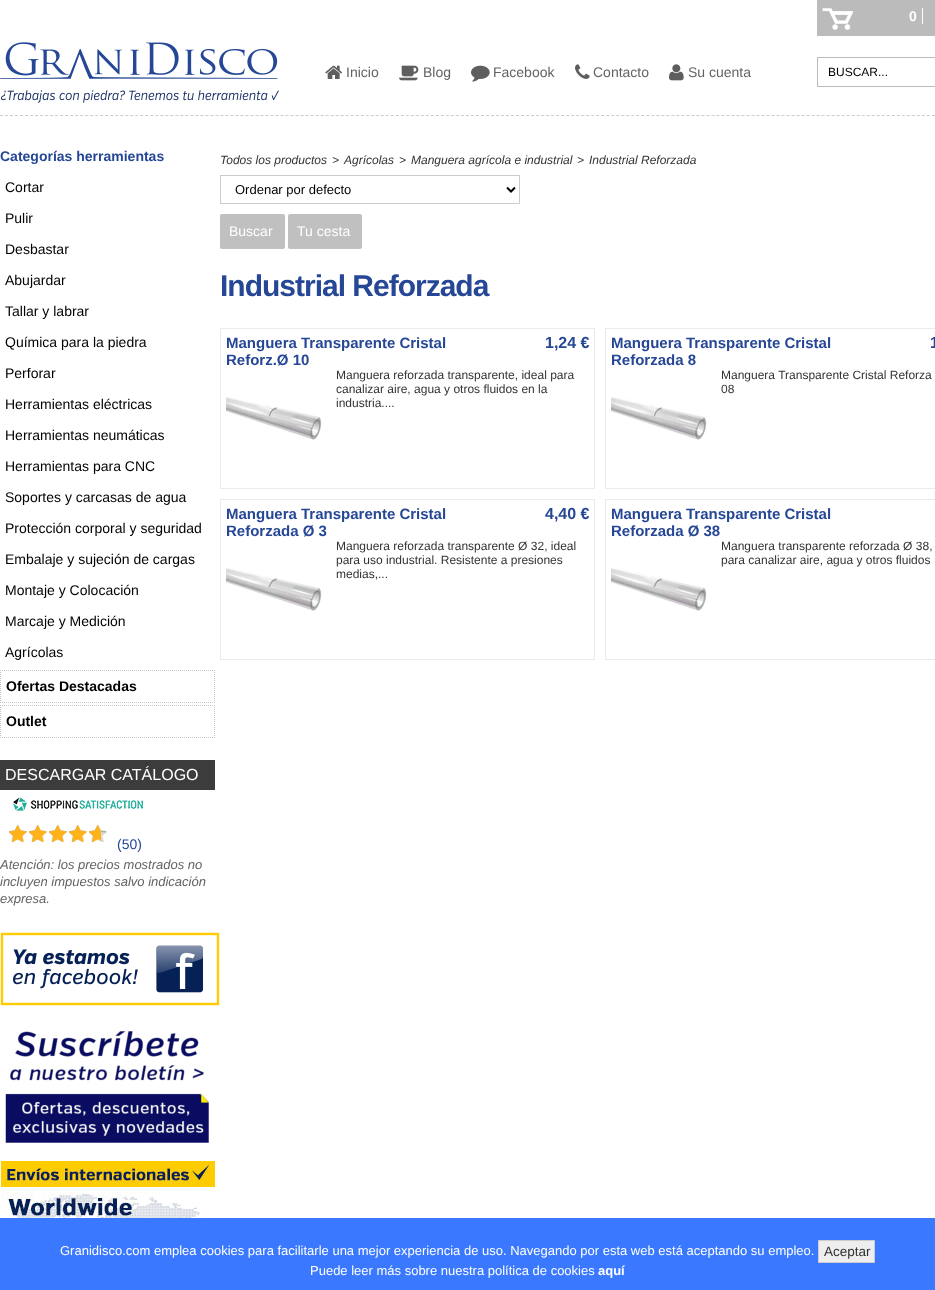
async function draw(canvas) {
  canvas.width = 935
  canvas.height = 1290
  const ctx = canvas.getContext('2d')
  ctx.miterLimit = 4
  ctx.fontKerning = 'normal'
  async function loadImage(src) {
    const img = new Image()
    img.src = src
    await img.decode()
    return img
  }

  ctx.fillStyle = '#fff'
  ctx.fillRect(0, 0, 935, 1290)
  ctx.beginPath()
  ctx.moveTo(0, 115.5)
  ctx.lineTo(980, 115.5)
  ctx.strokeStyle = '#ccc'
  ctx.setLineDash([3, 2.01])
  ctx.stroke()
  ctx.fillStyle = '#bbb'
  ctx.fillRect(817, 0, 118, 36)
  ctx.drawImage(await loadImage('image0.png'), 822, 8, 31, 22)
  ctx.fillStyle = '#fff'
  ctx.fillRect(922, 8, 1, 16)
  ctx.font = 'bold 14px Liberation Sans'
  ctx.fillText('0', 909, 21)
  ctx.drawImage(await loadImage('image1.png'), 0, 42, 279, 61)
  ctx.drawImage(await loadImage('image2.png'), 325, 65, 17, 14)
  ctx.font = '14px Liberation Sans'
  ctx.fillStyle = '#636363'
  ctx.fillText('Inicio', 346, 77)
  ctx.drawImage(await loadImage('image3.png'), 399, 65, 20, 16)
  ctx.fillText('Blog', 423, 77)
  ctx.drawImage(await loadImage('image4.png'), 471, 65, 19, 17)
  ctx.fillText('Facebook', 493, 77)
  ctx.drawImage(await loadImage('image5.png'), 575, 64, 15, 15)
  ctx.fillText('Contacto', 593, 77)
  ctx.drawImage(await loadImage('image6.png'), 669, 64, 15, 17)
  ctx.fillText('Su cuenta', 688, 77)
  ctx.strokeStyle = '#bbb'
  ctx.setLineDash([])
  ctx.strokeRect(817.5, 57.5, 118, 29)
  ctx.font = '12px Liberation Sans'
  ctx.fillStyle = '#000'
  ctx.fillText('BUSCAR...', 828, 76)
  ctx.font = 'bold 14px Liberation Sans'
  ctx.fillStyle = '#264796'
  ctx.fillText('Categorías herramientas', 0, 161)
  ctx.font = '14px Liberation Sans'
  ctx.fillStyle = '#000'
  ctx.fillText('Cortar', 5, 192)
  ctx.fillText('Pulir', 5, 223)
  ctx.fillText('Desbastar', 5, 254)
  ctx.fillText('Abujardar', 5, 285)
  ctx.fillText('Tallar y labrar', 5, 316)
  ctx.fillText('Química para la piedra', 5, 347)
  ctx.fillText('Perforar', 5, 378)
  ctx.fillText('Herramientas eléctricas', 5, 409)
  ctx.fillText('Herramientas neumáticas', 5, 440)
  ctx.fillText('Herramientas para CNC', 5, 471)
  ctx.fillText('Soportes y carcasas de agua', 5, 502)
  ctx.fillText('Protección corporal y seguridad', 5, 533)
  ctx.fillText('Embalaje y sujeción de cargas', 5, 564)
  ctx.fillText('Montaje y Colocación', 5, 595)
  ctx.fillText('Marcaje y Medición', 5, 626)
  ctx.fillText('Agrícolas', 5, 657)
  ctx.beginPath()
  ctx.moveTo(0, 670.5)
  ctx.lineTo(215, 670.5)
  ctx.strokeStyle = '#c5c5c5'
  ctx.setLineDash([1, 1])
  ctx.stroke()
  ctx.beginPath()
  ctx.moveTo(214.5, 670)
  ctx.lineTo(214.5, 703)
  ctx.stroke()
  ctx.beginPath()
  ctx.moveTo(0, 702.5)
  ctx.lineTo(215, 702.5)
  ctx.stroke()
  ctx.beginPath()
  ctx.moveTo(0.5, 670)
  ctx.lineTo(0.5, 703)
  ctx.stroke()
  ctx.font = 'bold 14px Liberation Sans'
  ctx.fillText('Ofertas Destacadas', 6, 691)
  ctx.beginPath()
  ctx.moveTo(0, 705.5)
  ctx.lineTo(215, 705.5)
  ctx.stroke()
  ctx.beginPath()
  ctx.moveTo(214.5, 705)
  ctx.lineTo(214.5, 738)
  ctx.stroke()
  ctx.beginPath()
  ctx.moveTo(0, 737.5)
  ctx.lineTo(215, 737.5)
  ctx.stroke()
  ctx.beginPath()
  ctx.moveTo(0.5, 705)
  ctx.lineTo(0.5, 738)
  ctx.stroke()
  ctx.fillText('Outlet', 6, 726)
  ctx.fillStyle = '#3c3c3c'
  ctx.fillRect(0, 760, 215, 30)
  ctx.font = '16px Liberation Sans'
  ctx.fillStyle = '#fff'
  ctx.fillText('DESCARGAR CATÁLOGO', 5, 780)
  ctx.drawImage(await loadImage('image7.png'), 13, 797, 130, 14)
  ctx.drawImage(await loadImage('image8.png'), 9, 825, 98, 17)
  ctx.drawImage(await loadImage('image9.png'), 9, 825, 92, 17)
  ctx.font = '14px Liberation Sans'
  ctx.fillStyle = '#264796'
  ctx.fillText('(50)', 117, 849)
  ctx.font = 'italic 13px Liberation Sans'
  ctx.fillStyle = '#636363'
  ctx.fillText('Atención: los precios mostrados no', 0, 869)
  ctx.fillText('incluyen impuestos salvo indicación', 0, 886)
  ctx.fillText('expresa.', 0, 903)
  ctx.drawImage(await loadImage('image10.png'), 0, 932, 220, 74)
  ctx.drawImage(await loadImage('image11.png'), 5, 1031, 205, 112)
  ctx.drawImage(await loadImage('image12.png'), 1, 1161, 214, 57)
  ctx.font = 'italic 12px Liberation Sans'
  ctx.fillStyle = '#333'
  ctx.fillText('Todos los productos', 220, 164)
  ctx.fillText('>', 332, 164)
  ctx.fillText('Agrícolas', 344, 164)
  ctx.fillText('>', 399, 164)
  ctx.fillText('Manguera agrícola e industrial', 411, 164)
  ctx.fillText('>', 577, 164)
  ctx.fillText('Industrial Reforzada', 589, 164)
  ctx.strokeStyle = '#ccc'
  ctx.setLineDash([])
  ctx.strokeRect(220.5, 175.5, 299, 28)
  ctx.beginPath()
  ctx.moveTo(507, 187.5)
  ctx.lineTo(511, 191.5)
  ctx.lineTo(515, 187.5)
  ctx.strokeStyle = '#000'
  ctx.lineWidth = 2
  ctx.stroke()
  ctx.font = '13px Liberation Sans'
  ctx.fillStyle = '#000'
  ctx.fillText('Ordenar por defecto', 235, 194)
  ctx.fillStyle = '#c0c0c0'
  ctx.beginPath()
  ctx.roundRect(220, 214, 65, 35, 2)
  ctx.fill()
  ctx.font = '14px Liberation Sans'
  ctx.fillStyle = '#fff'
  ctx.fillText('Buscar', 229, 236)
  ctx.fillStyle = '#c0c0c0'
  ctx.beginPath()
  ctx.roundRect(288, 214, 74, 35, 2)
  ctx.fill()
  ctx.fillStyle = '#fff'
  ctx.fillText('Tu cesta', 297, 236)
  ctx.letterSpacing = '-1px'
  ctx.font = 'bold 30px Liberation Sans'
  ctx.fillStyle = '#264796'
  ctx.fillText('Industrial Reforzada', 220, 296)
  ctx.strokeStyle = '#ebebeb'
  ctx.lineWidth = 1
  ctx.strokeRect(220.5, 328.5, 374, 160)
  ctx.letterSpacing = '0px'
  ctx.font = 'bold 15px Liberation Sans'
  ctx.fillText('Manguera Transparente Cristal', 226, 348)
  ctx.fillText('Reforz.Ø 10', 226, 365)
  ctx.font = 'bold 16px Liberation Sans'
  ctx.fillText('1,24 €', 545, 348)
  ctx.font = '12px Liberation Sans'
  ctx.fillStyle = '#333'
  ctx.fillText('Manguera reforzada transparente, ideal para', 336, 379)
  ctx.fillText('canalizar aire, agua y otros fluidos en la', 336, 393)
  ctx.fillText('industria....', 336, 407)
  ctx.drawImage(await loadImage('image13.png'), 226, 397, 96, 43)
  ctx.strokeRect(605.5, 328.5, 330, 160)
  ctx.font = 'bold 15px Liberation Sans'
  ctx.fillStyle = '#264796'
  ctx.fillText('Manguera Transparente Cristal', 611, 348)
  ctx.fillText('Reforzada 8', 611, 365)
  ctx.font = 'bold 16px Liberation Sans'
  ctx.fillText('1', 930, 348)
  ctx.font = '12px Liberation Sans'
  ctx.fillStyle = '#333'
  ctx.fillText('Manguera Transparente Cristal Reforza', 721, 379)
  ctx.fillText('08', 721, 393)
  ctx.drawImage(await loadImage('image13.png'), 611, 397, 96, 43)
  ctx.strokeRect(220.5, 499.5, 374, 160)
  ctx.font = 'bold 15px Liberation Sans'
  ctx.fillStyle = '#264796'
  ctx.fillText('Manguera Transparente Cristal', 226, 519)
  ctx.fillText('Reforzada Ø 3', 226, 536)
  ctx.font = 'bold 16px Liberation Sans'
  ctx.fillText('4,40 €', 545, 519)
  ctx.font = '12px Liberation Sans'
  ctx.fillStyle = '#333'
  ctx.fillText('Manguera reforzada transparente Ø 32, ideal', 336, 550)
  ctx.fillText('para uso industrial. Resistente a presiones', 336, 564)
  ctx.fillText('medias,...', 336, 578)
  ctx.drawImage(await loadImage('image13.png'), 226, 568, 96, 43)
  ctx.strokeRect(605.5, 499.5, 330, 160)
  ctx.font = 'bold 15px Liberation Sans'
  ctx.fillStyle = '#264796'
  ctx.fillText('Manguera Transparente Cristal', 611, 519)
  ctx.fillText('Reforzada Ø 38', 611, 536)
  ctx.font = '12px Liberation Sans'
  ctx.fillStyle = '#333'
  ctx.fillText('Manguera transparente reforzada Ø 38,', 721, 550)
  ctx.fillText('para canalizar aire, agua y otros fluidos', 721, 564)
  ctx.drawImage(await loadImage('image13.png'), 611, 568, 96, 43)
  ctx.fillStyle = '#3a79ff'
  ctx.fillRect(0, 1218, 935, 72)
  ctx.font = '13px Liberation Sans'
  ctx.fillStyle = '#fff'
  ctx.fillText('Granidisco.com emplea cookies para facilitarle una mejor experiencia de uso. Navegando por esta web está aceptando su empleo.', 60, 1255)
  ctx.fillStyle = '#eee'
  ctx.beginPath()
  ctx.rect(818.5, 1240.5, 56, 22)
  ctx.fill()
  ctx.strokeStyle = '#ccc'
  ctx.stroke()
  ctx.font = '13.5px Liberation Sans'
  ctx.fillStyle = '#333'
  ctx.fillText('Aceptar', 824, 1256)
  ctx.font = '13px Liberation Sans'
  ctx.fillStyle = '#fff'
  ctx.fillText('Puede leer más sobre nuestra política de cookies', 310, 1275)
  ctx.font = 'bold 13px Liberation Sans'
  ctx.fillText('aquí', 598, 1275)
}

draw(document.querySelector('canvas'))
